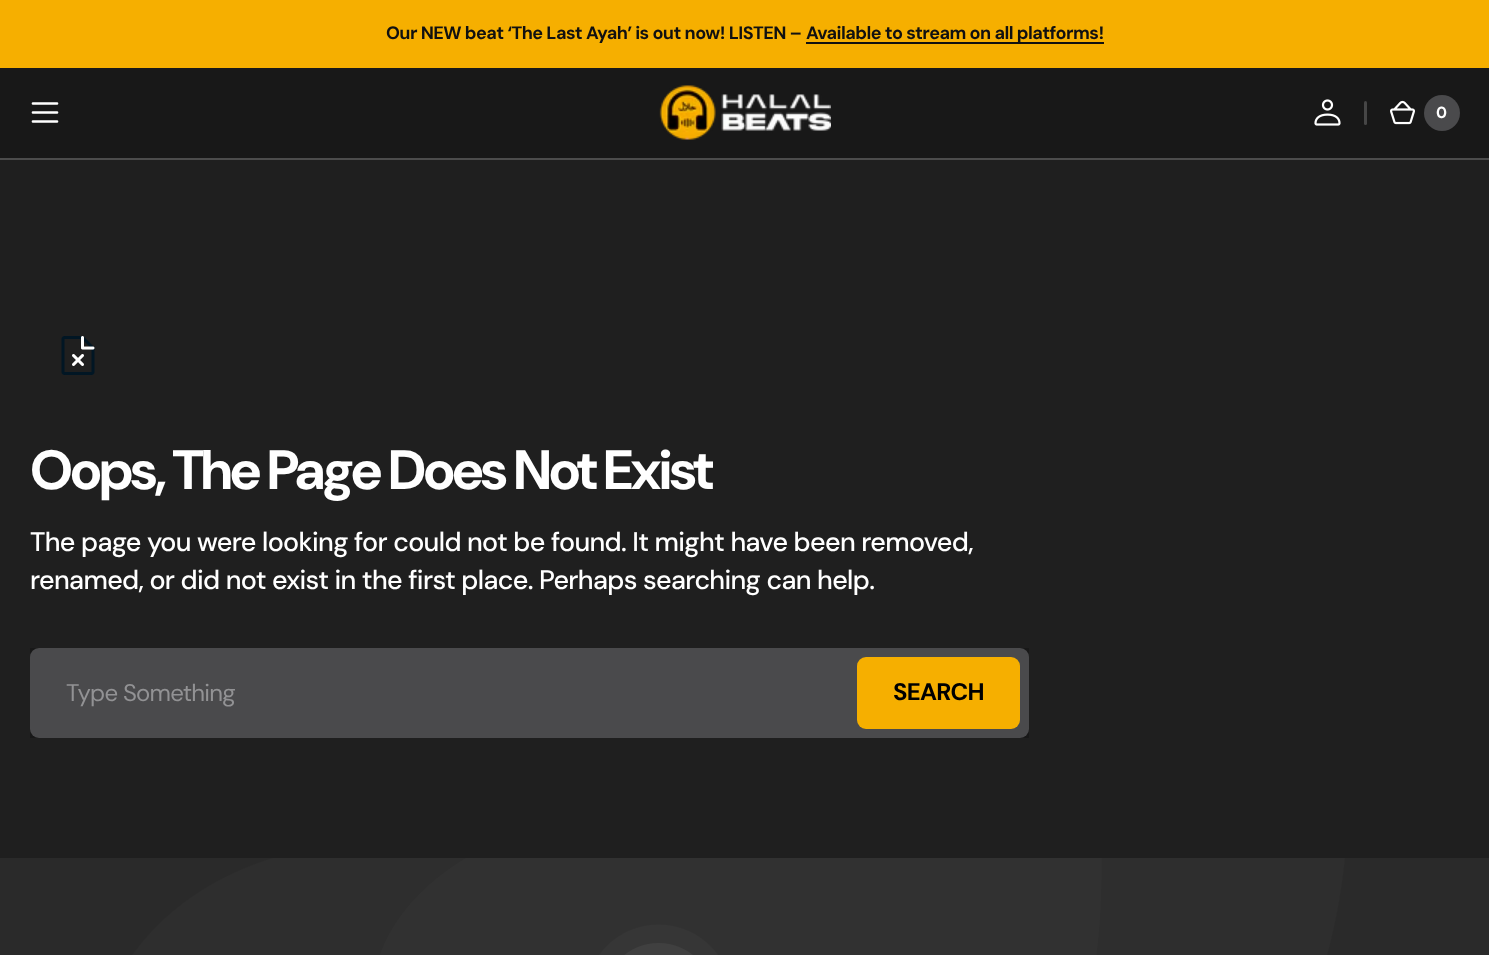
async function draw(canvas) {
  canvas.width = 1489
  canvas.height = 955
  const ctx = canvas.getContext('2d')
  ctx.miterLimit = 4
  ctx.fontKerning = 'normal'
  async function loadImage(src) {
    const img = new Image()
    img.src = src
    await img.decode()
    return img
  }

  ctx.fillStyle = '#1f1f1f'
  ctx.fillRect(0, 0, 1489, 955)
  ctx.fillStyle = '#f6af00'
  ctx.fillRect(0, 0, 1489, 68)
  ctx.letterSpacing = '-0.55px'
  ctx.font = 'bold 18px "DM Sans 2"'
  ctx.fillStyle = '#111'
  ctx.fillText('Our NEW beat ‘The Last Ayah’ is out now! LISTEN –', 386, 39)
  ctx.fillRect(806, 42, 298, 2)
  ctx.fillText('Available to stream on all platforms!', 806, 39)
  ctx.fillStyle = '#181818'
  ctx.fillRect(0, 68, 1489, 90)
  ctx.beginPath()
  ctx.moveTo(33, 103.5)
  ctx.lineTo(57, 103.5)
  ctx.moveTo(33, 112.5)
  ctx.lineTo(57, 112.5)
  ctx.moveTo(33, 121.5)
  ctx.lineTo(57, 121.5)
  ctx.strokeStyle = '#fff'
  ctx.lineWidth = 2.7
  ctx.lineCap = 'round'
  ctx.stroke()
  ctx.drawImage(await loadImage('image0.png'), 659, 85, 172, 55)
  ctx.drawImage(await loadImage('image1.png'), 1314, 99, 27, 27)
  ctx.fillStyle = '#464646'
  ctx.beginPath()
  ctx.roundRect(1364, 101, 3, 24, 1.5)
  ctx.fill()
  ctx.drawImage(await loadImage('image2.png'), 1390, 100, 25, 25)
  ctx.fillStyle = '#4a4a4c'
  ctx.beginPath()
  ctx.arc(1442, 113, 18, 0, 2 * Math.PI)
  ctx.fill()
  ctx.letterSpacing = '-0.67px'
  ctx.font = 'bold 16px "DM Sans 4"'
  ctx.fillStyle = '#fff'
  ctx.fillText('0', 1436, 118)
  ctx.fillStyle = '#4c4c4c'
  ctx.fillRect(0, 158, 1489, 2)
  ctx.drawImage(await loadImage('image3.png'), 61, 336, 34, 39)
  ctx.letterSpacing = '-2.75px'
  ctx.font = 'bold 55.25px DM Sans'
  ctx.fillStyle = '#fff'
  ctx.fillText('Oops, The Page Does Not Exist', 30, 489)
  ctx.letterSpacing = '-0.67px'
  ctx.font = '500 26.9px DM Sans'
  ctx.fillText('The page you were looking for could not be found. It might have been removed,', 30, 551)
  ctx.fillText('renamed, or did not exist in the first place. Perhaps searching can help.', 30, 589)
  ctx.fillStyle = '#181818'
  ctx.fillRect(30, 648, 999, 90)
  ctx.fillStyle = '#4a4a4c'
  ctx.beginPath()
  ctx.roundRect(30, 648, 999, 90, 9)
  ctx.fill()
  ctx.letterSpacing = '-0.75px'
  ctx.font = '24px DM Sans'
  ctx.fillStyle = '#929294'
  ctx.fillText('Type Something', 66, 701)
  ctx.fillStyle = '#f6af00'
  ctx.beginPath()
  ctx.roundRect(857, 657, 163, 72, 9)
  ctx.fill()
  ctx.font = 'bold 24px "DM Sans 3"'
  ctx.fillStyle = '#000'
  ctx.fillText('SEARCH', 893, 700)
  ctx.drawImage(await loadImage('image4.png'), 0, 858, 1489, 97)
}

draw(document.querySelector('canvas'))
